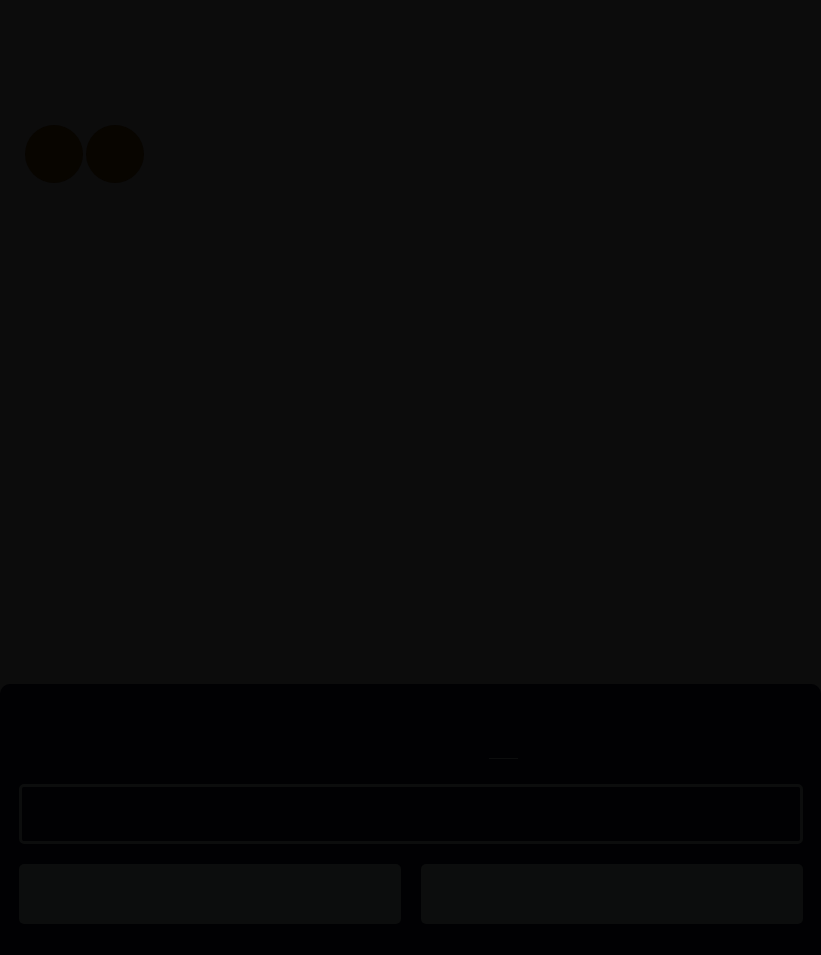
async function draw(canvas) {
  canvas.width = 821
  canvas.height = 955
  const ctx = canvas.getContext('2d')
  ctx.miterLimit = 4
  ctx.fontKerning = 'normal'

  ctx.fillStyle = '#0c0c0c'
  ctx.fillRect(0, 0, 821, 955)
  ctx.fillStyle = '#080500'
  ctx.beginPath()
  ctx.arc(54, 154, 29, 0, 2 * Math.PI)
  ctx.fill()
  ctx.beginPath()
  ctx.arc(115, 154, 29, 0, 2 * Math.PI)
  ctx.fill()
  ctx.fillStyle = '#010103'
  ctx.beginPath()
  ctx.roundRect(0, 684, 821, 271, [10, 10, 0, 0])
  ctx.fill()
  ctx.fillStyle = '#0c0d0d'
  ctx.fillRect(489, 758, 29, 1)
  ctx.beginPath()
  ctx.roundRect(20.5, 785.5, 781, 57, 3.5)
  ctx.strokeStyle = '#0c0d0d'
  ctx.lineWidth = 3
  ctx.stroke()
  ctx.beginPath()
  ctx.roundRect(19, 864, 382, 60, 5)
  ctx.fill()
  ctx.beginPath()
  ctx.roundRect(421, 864, 382, 60, 5)
  ctx.fill()
}

draw(document.querySelector('canvas'))
